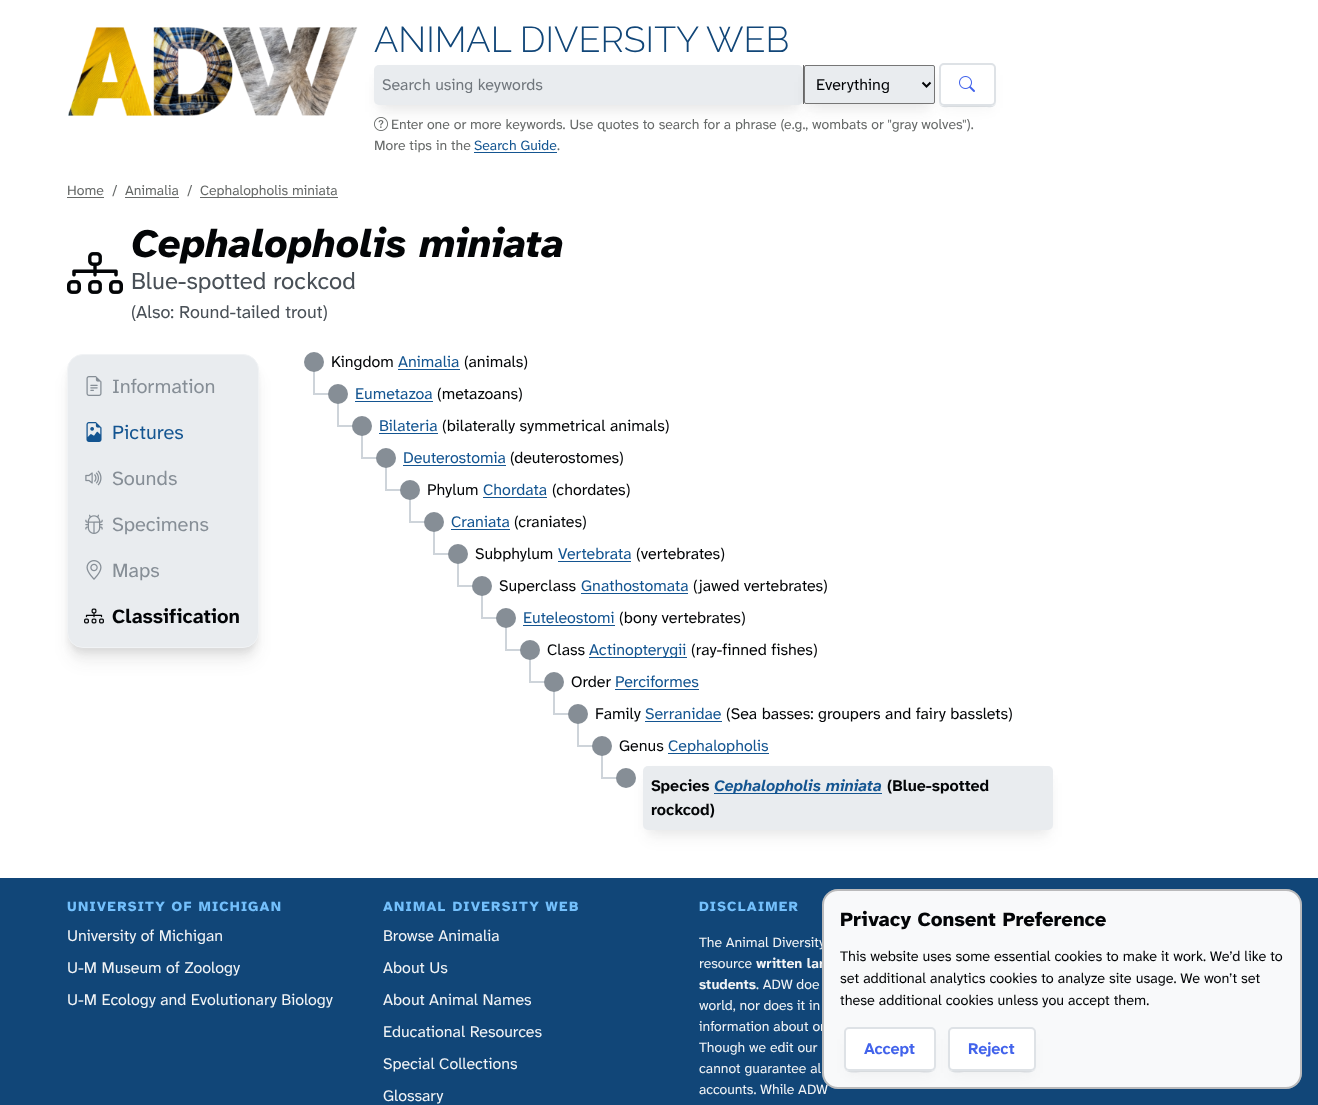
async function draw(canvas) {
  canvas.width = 1318
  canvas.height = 1105
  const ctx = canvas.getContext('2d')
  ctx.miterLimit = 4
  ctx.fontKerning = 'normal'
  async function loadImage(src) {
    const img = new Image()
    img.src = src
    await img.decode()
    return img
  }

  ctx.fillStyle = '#fff'
  ctx.fillRect(0, 0, 1318, 1105)
  ctx.drawImage(await loadImage('image0.png'), 68, 27, 290, 89)
  ctx.font = '300 36px Raleway'
  ctx.fillStyle = '#114678'
  ctx.fillText('ANIMAL DIVERSITY WEB', 374, 52)
  ctx.fillStyle = '#25262714'
  ctx.filter = 'blur(7.5px)'
  ctx.beginPath()
  ctx.rect(379, 82, 419, 30)
  ctx.fill()
  ctx.filter = 'none'
  ctx.fillStyle = '#2526270f'
  ctx.filter = 'blur(6px)'
  ctx.beginPath()
  ctx.rect(379, 74, 419, 30)
  ctx.fill()
  ctx.filter = 'none'
  ctx.fillStyle = '#e9ecef'
  ctx.beginPath()
  ctx.roundRect(374, 65, 429, 40, 5)
  ctx.fill()
  ctx.font = '16px Atkinson Hyperlegible Next'
  ctx.fillStyle = '#71777d'
  ctx.fillText('Search using keywords', 382, 90)
  ctx.fillStyle = '#25262714'
  ctx.filter = 'blur(7.5px)'
  ctx.beginPath()
  ctx.rect(808, 82, 122, 29)
  ctx.fill()
  ctx.filter = 'none'
  ctx.fillStyle = '#2526270f'
  ctx.filter = 'blur(6px)'
  ctx.beginPath()
  ctx.rect(808, 74, 122, 29)
  ctx.fill()
  ctx.filter = 'none'
  ctx.fillStyle = '#666'
  ctx.fillRect(803, 65, 1, 39)
  ctx.fillStyle = '#e9ecef'
  ctx.beginPath()
  ctx.roundRect(804.5, 65.5, 130, 38, 1.5)
  ctx.fill()
  ctx.strokeStyle = '#767676'
  ctx.stroke()
  ctx.beginPath()
  ctx.moveTo(922.5, 82.5)
  ctx.lineTo(926.5, 86.5)
  ctx.lineTo(930.5, 82.5)
  ctx.strokeStyle = '#030507'
  ctx.lineWidth = 2
  ctx.stroke()
  ctx.fillStyle = '#030507'
  ctx.fillText('Everything', 816, 90)
  ctx.fillStyle = '#dee2e6'
  ctx.beginPath()
  ctx.moveTo(939, 101)
  ctx.bezierCurveTo(939, 109, 946, 107, 952, 107)
  ctx.lineTo(983, 107)
  ctx.bezierCurveTo(989, 107, 996, 109, 996, 101)
  ctx.bezierCurveTo(996, 104, 994, 106, 991, 106)
  ctx.lineTo(944, 106)
  ctx.bezierCurveTo(941, 106, 939, 104, 939, 101)
  ctx.closePath()
  ctx.fill()
  ctx.fillStyle = '#2526270f'
  ctx.filter = 'blur(7px)'
  ctx.beginPath()
  ctx.rect(944, 75, 47, 33)
  ctx.fill()
  ctx.filter = 'none'
  ctx.fillStyle = '#fff'
  ctx.beginPath()
  ctx.roundRect(940, 64, 55, 41, 4)
  ctx.fill()
  ctx.strokeStyle = '#dee2e6'
  ctx.stroke()
  ctx.drawImage(await loadImage('image1.png'), 959, 76, 16, 16)
  ctx.drawImage(await loadImage('image2.png'), 374, 117, 14, 14)
  ctx.font = '14px Atkinson Hyperlegible Next'
  ctx.fillStyle = '#666968'
  ctx.fillText('Enter one or more keywords. Use quotes to search for a phrase (e.g., wombats or "gray wolves").', 391, 129)
  ctx.fillText('More tips in the', 374, 150)
  ctx.fillStyle = '#145591'
  ctx.fillText('Search Guide', 474, 150)
  ctx.fillRect(474, 152, 83, 1)
  ctx.fillStyle = '#666968'
  ctx.fillText('.', 557, 150)
  ctx.fillText('Home', 67, 195)
  ctx.fillRect(67, 197, 37, 1)
  ctx.fillText('/', 112, 195)
  ctx.fillText('Animalia', 125, 195)
  ctx.fillRect(125, 197, 54, 1)
  ctx.fillText('/', 187, 195)
  ctx.fillRect(200, 197, 138, 1)
  ctx.fillText('Cephalopholis miniata', 200, 195)
  ctx.drawImage(await loadImage('image3.png'), 67, 252, 56, 42)
  ctx.font = 'italic 800 40px Atkinson Hyperlegible Next'
  ctx.fillStyle = '#030507'
  ctx.fillText('Cephalopholis miniata', 131, 257)
  ctx.font = '24px Atkinson Hyperlegible Next'
  ctx.fillStyle = '#495057'
  ctx.fillText('Blue-spotted rockcod', 131, 289)
  ctx.font = '18px Atkinson Hyperlegible Next'
  ctx.fillText('(Also: Round-tailed trout)', 131, 318)
  ctx.fillStyle = '#25262712'
  ctx.filter = 'blur(8px)'
  ctx.beginPath()
  ctx.roundRect(69, 372, 188, 290, 14)
  ctx.fill()
  ctx.filter = 'none'
  ctx.fillStyle = '#2526270f'
  ctx.filter = 'blur(4.5px)'
  ctx.beginPath()
  ctx.roundRect(69, 365, 188, 290, 14)
  ctx.fill()
  ctx.filter = 'none'
  ctx.fillStyle = '#2526270d'
  ctx.filter = 'blur(2.5px)'
  ctx.beginPath()
  ctx.roundRect(69, 361, 188, 290, 14)
  ctx.fill()
  ctx.filter = 'none'
  ctx.fillStyle = '#e9ecef'
  ctx.beginPath()
  ctx.roundRect(67.5, 354.5, 191, 293, 15.5)
  ctx.fill()
  ctx.strokeStyle = '#f1f3f5'
  ctx.lineWidth = 1
  ctx.stroke()
  ctx.drawImage(await loadImage('image4.png'), 86, 376, 16, 20)
  ctx.font = '20px Atkinson Hyperlegible Next'
  ctx.fillStyle = '#868e96'
  ctx.fillText('Information', 112, 393)
  ctx.drawImage(await loadImage('image5.png'), 86, 422, 16, 20)
  ctx.fillStyle = '#145591'
  ctx.fillText('Pictures', 112, 439)
  ctx.drawImage(await loadImage('image6.png'), 85, 470, 17, 16)
  ctx.fillStyle = '#868e96'
  ctx.fillText('Sounds', 112, 485)
  ctx.drawImage(await loadImage('image7.png'), 85, 514, 18, 20)
  ctx.fillText('Specimens', 112, 531)
  ctx.drawImage(await loadImage('image8.png'), 86, 560, 16, 20)
  ctx.fillText('Maps', 112, 577)
  ctx.drawImage(await loadImage('image9.png'), 84, 608, 20, 16)
  ctx.font = 'bold 20px Atkinson Hyperlegible Next'
  ctx.fillStyle = '#030507'
  ctx.fillText('Classification', 112, 623)
  ctx.fillStyle = '#ced4da'
  ctx.fillRect(313, 393, 16, 2)
  ctx.fillRect(313, 370, 2, 25)
  ctx.fillStyle = '#868e96'
  ctx.beginPath()
  ctx.arc(314, 362, 10, 0, 2 * Math.PI)
  ctx.fill()
  ctx.font = '16px Atkinson Hyperlegible Next'
  ctx.fillStyle = '#030507'
  ctx.fillText('Kingdom', 331, 367)
  ctx.fillStyle = '#145591'
  ctx.fillText('Animalia', 398, 367)
  ctx.fillRect(398, 369, 62, 1)
  ctx.fillStyle = '#030507'
  ctx.fillText('(animals)', 464, 367)
  ctx.fillStyle = '#ced4da'
  ctx.fillRect(337, 425, 16, 2)
  ctx.fillRect(337, 402, 2, 25)
  ctx.fillStyle = '#868e96'
  ctx.beginPath()
  ctx.arc(338, 394, 10, 0, 2 * Math.PI)
  ctx.fill()
  ctx.fillStyle = '#145591'
  ctx.fillText('Eumetazoa', 355, 399)
  ctx.fillRect(355, 401, 78, 1)
  ctx.fillStyle = '#030507'
  ctx.fillText('(metazoans)', 437, 399)
  ctx.fillStyle = '#ced4da'
  ctx.fillRect(361, 457, 16, 2)
  ctx.fillRect(361, 434, 2, 25)
  ctx.fillStyle = '#868e96'
  ctx.beginPath()
  ctx.arc(362, 426, 10, 0, 2 * Math.PI)
  ctx.fill()
  ctx.fillStyle = '#145591'
  ctx.fillText('Bilateria', 379, 431)
  ctx.fillRect(379, 433, 59, 1)
  ctx.fillStyle = '#030507'
  ctx.fillText('(bilaterally symmetrical animals)', 442, 431)
  ctx.fillStyle = '#ced4da'
  ctx.fillRect(385, 489, 16, 2)
  ctx.fillRect(385, 466, 2, 25)
  ctx.fillStyle = '#868e96'
  ctx.beginPath()
  ctx.arc(386, 458, 10, 0, 2 * Math.PI)
  ctx.fill()
  ctx.fillStyle = '#145591'
  ctx.fillText('Deuterostomia', 403, 463)
  ctx.fillRect(403, 465, 103, 1)
  ctx.fillStyle = '#030507'
  ctx.fillText('(deuterostomes)', 510, 463)
  ctx.fillStyle = '#ced4da'
  ctx.fillRect(409, 521, 16, 2)
  ctx.fillRect(409, 498, 2, 25)
  ctx.fillStyle = '#868e96'
  ctx.beginPath()
  ctx.arc(410, 490, 10, 0, 2 * Math.PI)
  ctx.fill()
  ctx.fillStyle = '#030507'
  ctx.fillText('Phylum', 427, 495)
  ctx.fillStyle = '#145591'
  ctx.fillText('Chordata', 483, 495)
  ctx.fillRect(483, 497, 64, 1)
  ctx.fillStyle = '#030507'
  ctx.fillText('(chordates)', 552, 495)
  ctx.fillStyle = '#ced4da'
  ctx.fillRect(433, 553, 16, 2)
  ctx.fillRect(433, 530, 2, 25)
  ctx.fillStyle = '#868e96'
  ctx.beginPath()
  ctx.arc(434, 522, 10, 0, 2 * Math.PI)
  ctx.fill()
  ctx.fillStyle = '#145591'
  ctx.fillText('Craniata', 451, 527)
  ctx.fillRect(451, 529, 59, 1)
  ctx.fillStyle = '#030507'
  ctx.fillText('(craniates)', 514, 527)
  ctx.fillStyle = '#ced4da'
  ctx.fillRect(457, 585, 16, 2)
  ctx.fillRect(457, 562, 2, 25)
  ctx.fillStyle = '#868e96'
  ctx.beginPath()
  ctx.arc(458, 554, 10, 0, 2 * Math.PI)
  ctx.fill()
  ctx.fillStyle = '#030507'
  ctx.fillText('Subphylum', 475, 559)
  ctx.fillStyle = '#145591'
  ctx.fillText('Vertebrata', 558, 559)
  ctx.fillRect(558, 561, 73, 1)
  ctx.fillStyle = '#030507'
  ctx.fillText('(vertebrates)', 636, 559)
  ctx.fillStyle = '#ced4da'
  ctx.fillRect(481, 617, 16, 2)
  ctx.fillRect(481, 594, 2, 25)
  ctx.fillStyle = '#868e96'
  ctx.beginPath()
  ctx.arc(482, 586, 10, 0, 2 * Math.PI)
  ctx.fill()
  ctx.fillStyle = '#030507'
  ctx.fillText('Superclass', 499, 591)
  ctx.fillStyle = '#145591'
  ctx.fillText('Gnathostomata', 581, 591)
  ctx.fillRect(581, 593, 107, 1)
  ctx.fillStyle = '#030507'
  ctx.fillText('(jawed vertebrates)', 693, 591)
  ctx.fillStyle = '#ced4da'
  ctx.fillRect(505, 649, 16, 2)
  ctx.fillRect(505, 626, 2, 25)
  ctx.fillStyle = '#868e96'
  ctx.beginPath()
  ctx.arc(506, 618, 10, 0, 2 * Math.PI)
  ctx.fill()
  ctx.fillStyle = '#145591'
  ctx.fillText('Euteleostomi', 523, 623)
  ctx.fillRect(523, 625, 92, 1)
  ctx.fillStyle = '#030507'
  ctx.fillText('(bony vertebrates)', 619, 623)
  ctx.fillStyle = '#ced4da'
  ctx.fillRect(529, 681, 16, 2)
  ctx.fillRect(529, 658, 2, 25)
  ctx.fillStyle = '#868e96'
  ctx.beginPath()
  ctx.arc(530, 650, 10, 0, 2 * Math.PI)
  ctx.fill()
  ctx.fillStyle = '#030507'
  ctx.fillText('Class', 547, 655)
  ctx.fillStyle = '#145591'
  ctx.fillRect(589, 657, 98, 1)
  ctx.fillText('Actinopterygii', 589, 655)
  ctx.fillStyle = '#030507'
  ctx.fillText('(ray-finned fishes)', 691, 655)
  ctx.fillStyle = '#ced4da'
  ctx.fillRect(553, 713, 16, 2)
  ctx.fillRect(553, 690, 2, 25)
  ctx.fillStyle = '#868e96'
  ctx.beginPath()
  ctx.arc(554, 682, 10, 0, 2 * Math.PI)
  ctx.fill()
  ctx.fillStyle = '#030507'
  ctx.fillText('Order', 571, 687)
  ctx.fillStyle = '#145591'
  ctx.fillText('Perciformes', 615, 687)
  ctx.fillRect(615, 689, 84, 1)
  ctx.fillStyle = '#ced4da'
  ctx.fillRect(577, 745, 16, 2)
  ctx.fillRect(577, 722, 2, 25)
  ctx.fillStyle = '#868e96'
  ctx.beginPath()
  ctx.arc(578, 714, 10, 0, 2 * Math.PI)
  ctx.fill()
  ctx.fillStyle = '#030507'
  ctx.fillText('Family', 595, 719)
  ctx.fillStyle = '#145591'
  ctx.fillText('Serranidae', 645, 719)
  ctx.fillRect(645, 721, 77, 1)
  ctx.fillStyle = '#030507'
  ctx.fillText('(Sea basses: groupers and fairy basslets)', 726, 719)
  ctx.fillStyle = '#ced4da'
  ctx.fillRect(601, 777, 16, 2)
  ctx.fillRect(601, 754, 2, 25)
  ctx.fillStyle = '#868e96'
  ctx.beginPath()
  ctx.arc(602, 746, 10, 0, 2 * Math.PI)
  ctx.fill()
  ctx.fillStyle = '#030507'
  ctx.fillText('Genus', 619, 751)
  ctx.fillStyle = '#145591'
  ctx.fillRect(668, 753, 101, 1)
  ctx.fillText('Cephalopholis', 668, 751)
  ctx.fillStyle = '#25262714'
  ctx.filter = 'blur(7.5px)'
  ctx.beginPath()
  ctx.rect(648, 783, 400, 54)
  ctx.fill()
  ctx.filter = 'none'
  ctx.fillStyle = '#2526270f'
  ctx.filter = 'blur(6px)'
  ctx.beginPath()
  ctx.rect(648, 775, 400, 54)
  ctx.fill()
  ctx.filter = 'none'
  ctx.fillStyle = '#868e96'
  ctx.beginPath()
  ctx.arc(626, 778, 10, 0, 2 * Math.PI)
  ctx.fill()
  ctx.fillStyle = '#e9ecef'
  ctx.beginPath()
  ctx.roundRect(643, 766, 410, 64, 5)
  ctx.fill()
  ctx.font = 'bold 16px Atkinson Hyperlegible Next'
  ctx.fillStyle = '#030507'
  ctx.fillText('Species', 651, 791)
  ctx.fillStyle = '#145591'
  ctx.fillRect(714, 793, 168, 1)
  ctx.font = 'italic bold 16px Atkinson Hyperlegible Next'
  ctx.fillText('Cephalopholis miniata', 714, 791)
  ctx.font = 'bold 16px Atkinson Hyperlegible Next'
  ctx.fillStyle = '#030507'
  ctx.fillText('(Blue-spotted', 887, 791)
  ctx.fillText('rockcod)', 651, 815)
  ctx.fillStyle = '#114678'
  ctx.fillRect(0, 878, 1318, 227)
  ctx.letterSpacing = '1.25px'
  ctx.font = '800 14px Atkinson Hyperlegible Next'
  ctx.fillStyle = '#74c0fc'
  ctx.fillText('UNIVERSITY OF MICHIGAN', 67, 911)
  ctx.letterSpacing = '0px'
  ctx.font = '16px Atkinson Hyperlegible Next'
  ctx.fillStyle = '#f2f4f6'
  ctx.fillText('University of Michigan', 67, 941)
  ctx.fillText('U-M Museum of Zoology', 67, 973)
  ctx.fillText('U-M Ecology and Evolutionary Biology', 67, 1005)
  ctx.letterSpacing = '1.25px'
  ctx.font = '800 14px Atkinson Hyperlegible Next'
  ctx.fillStyle = '#74c0fc'
  ctx.fillText('ANIMAL DIVERSITY WEB', 383, 911)
  ctx.letterSpacing = '0px'
  ctx.font = '16px Atkinson Hyperlegible Next'
  ctx.fillStyle = '#f2f4f6'
  ctx.fillText('Browse Animalia', 383, 941)
  ctx.fillText('About Us', 383, 973)
  ctx.fillText('About Animal Names', 383, 1005)
  ctx.fillText('Educational Resources', 383, 1037)
  ctx.fillText('Special Collections', 383, 1069)
  ctx.fillText('Glossary', 383, 1101)
  ctx.letterSpacing = '1.25px'
  ctx.font = '800 14px Atkinson Hyperlegible Next'
  ctx.fillStyle = '#74c0fc'
  ctx.fillText('DISCLAIMER', 699, 911)
  ctx.letterSpacing = '0px'
  ctx.font = '14px Atkinson Hyperlegible Next'
  ctx.fillStyle = '#f2f4f6'
  ctx.fillText('The Animal Diversity', 699, 947)
  ctx.fillText('resource', 699, 968)
  ctx.font = 'bold 14px Atkinson Hyperlegible Next'
  ctx.fillText('written lar', 756, 968)
  ctx.fillText('students', 699, 989)
  ctx.font = '14px Atkinson Hyperlegible Next'
  ctx.fillText('. ADW doe', 756, 989)
  ctx.fillText('world, nor does it in', 699, 1010)
  ctx.fillText('information about or', 699, 1031)
  ctx.fillText('Though we edit our', 699, 1052)
  ctx.fillText('cannot guarantee al', 699, 1073)
  ctx.fillText('accounts. While ADW', 699, 1094)
  ctx.fillStyle = '#f8f9fa'
  ctx.beginPath()
  ctx.roundRect(822, 889, 480, 200, 16)
  ctx.fill()
  ctx.beginPath()
  ctx.roundRect(823, 890, 478, 198, 15)
  ctx.strokeStyle = '#00000040'
  ctx.lineWidth = 2
  ctx.stroke()
  ctx.font = '800 20px Atkinson Hyperlegible Next'
  ctx.fillStyle = '#030507'
  ctx.fillText('Privacy Consent Preference', 840, 926)
  ctx.font = '14.4px Atkinson Hyperlegible Next'
  ctx.fillText('This website uses some essential cookies to make it work. We’d like to', 840, 961)
  ctx.fillText('set additional analytics cookies to analyze site usage. We won’t set', 840, 983)
  ctx.fillText('these additional cookies unless you accept them.', 840, 1005)
  ctx.fillStyle = '#dee2e6'
  ctx.beginPath()
  ctx.moveTo(844, 1066)
  ctx.bezierCurveTo(844, 1075, 857, 1072, 863, 1072)
  ctx.lineTo(917, 1072)
  ctx.bezierCurveTo(923, 1072, 936, 1075, 936, 1066)
  ctx.bezierCurveTo(936, 1069, 934, 1071, 931, 1071)
  ctx.lineTo(849, 1071)
  ctx.bezierCurveTo(846, 1071, 844, 1069, 844, 1066)
  ctx.closePath()
  ctx.fill()
  ctx.fillStyle = '#2526270f'
  ctx.filter = 'blur(7px)'
  ctx.beginPath()
  ctx.rect(849, 1039, 82, 34)
  ctx.fill()
  ctx.filter = 'none'
  ctx.fillStyle = '#fff'
  ctx.beginPath()
  ctx.roundRect(845, 1028, 90, 42, 4)
  ctx.fill()
  ctx.strokeStyle = '#dee2e6'
  ctx.stroke()
  ctx.font = 'bold 16px Atkinson Hyperlegible Next'
  ctx.fillStyle = '#4263eb'
  ctx.fillText('Accept', 864, 1054)
  ctx.fillStyle = '#dee2e6'
  ctx.beginPath()
  ctx.moveTo(948, 1066)
  ctx.bezierCurveTo(948, 1075, 960, 1072, 966, 1072)
  ctx.lineTo(1018, 1072)
  ctx.bezierCurveTo(1024, 1072, 1036, 1075, 1036, 1066)
  ctx.bezierCurveTo(1036, 1069, 1034, 1071, 1031, 1071)
  ctx.lineTo(953, 1071)
  ctx.bezierCurveTo(950, 1071, 948, 1069, 948, 1066)
  ctx.closePath()
  ctx.fill()
  ctx.fillStyle = '#2526270f'
  ctx.filter = 'blur(7px)'
  ctx.beginPath()
  ctx.rect(953, 1039, 78, 34)
  ctx.fill()
  ctx.filter = 'none'
  ctx.fillStyle = '#fff'
  ctx.beginPath()
  ctx.roundRect(949, 1028, 86, 42, 4)
  ctx.fill()
  ctx.stroke()
  ctx.fillStyle = '#4263eb'
  ctx.fillText('Reject', 968, 1054)
}

draw(document.querySelector('canvas'))
